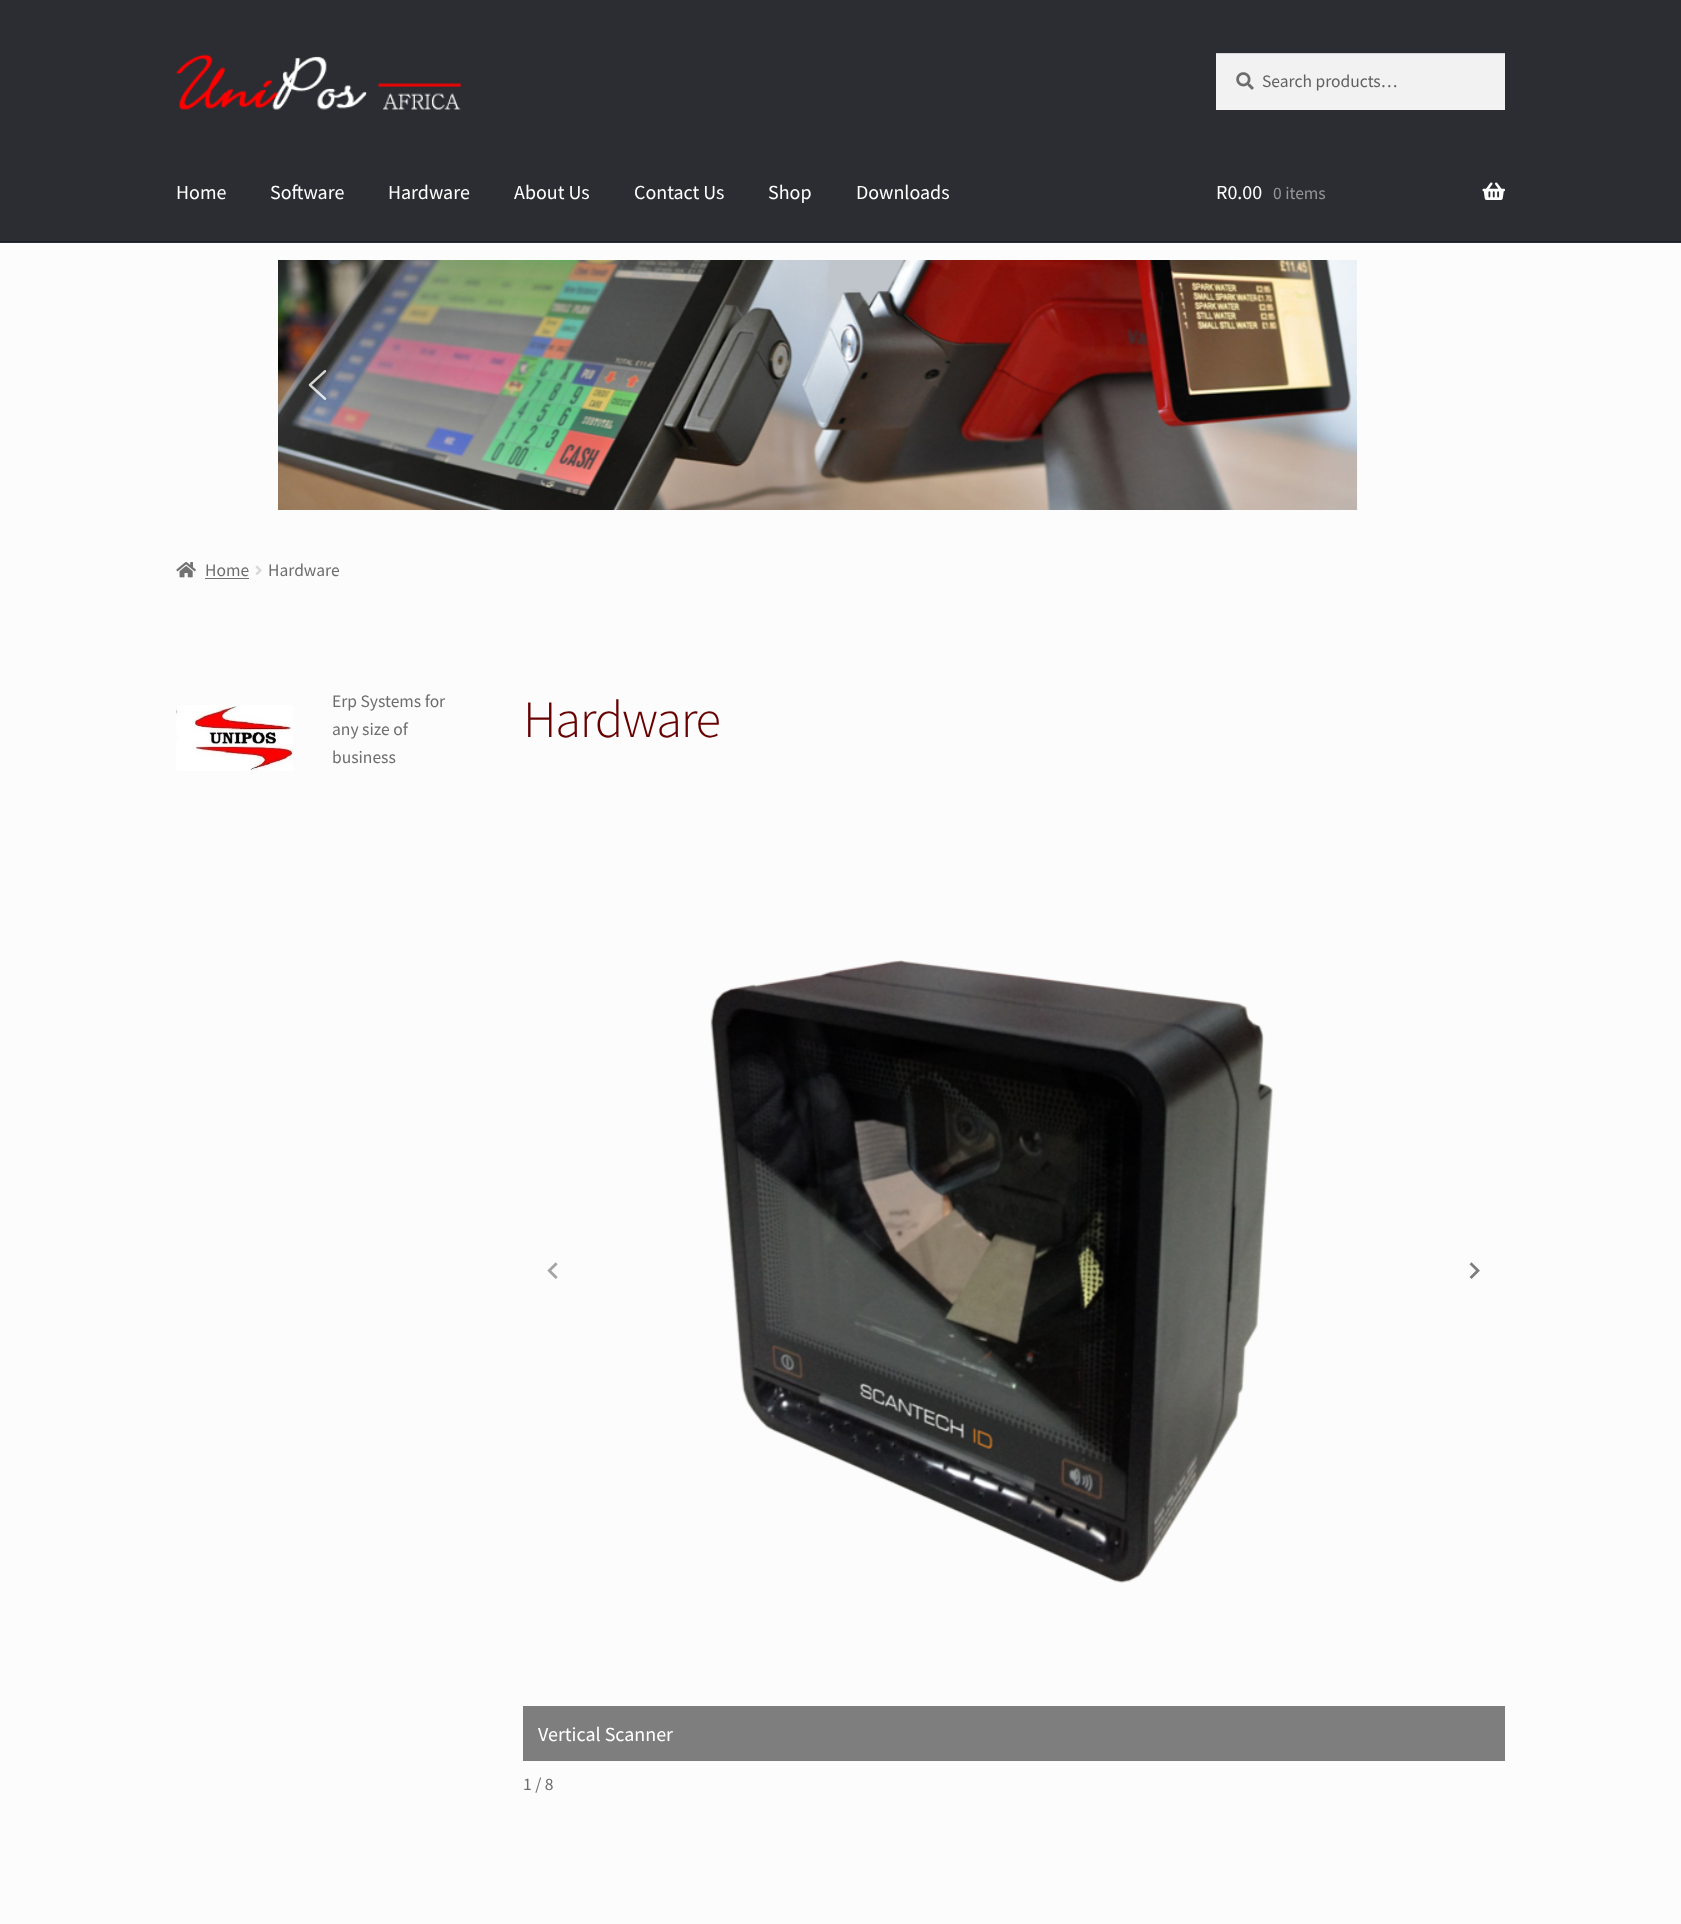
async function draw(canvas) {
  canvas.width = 1681
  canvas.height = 1924
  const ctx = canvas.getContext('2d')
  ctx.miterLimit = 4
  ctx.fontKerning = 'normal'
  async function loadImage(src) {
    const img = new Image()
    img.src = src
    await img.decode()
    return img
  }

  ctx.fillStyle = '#fcfcfc'
  ctx.fillRect(0, 0, 1681, 1924)
  ctx.fillStyle = '#2c2d33'
  ctx.fillRect(0, 0, 1681, 243)
  ctx.fillStyle = '#1d1e24'
  ctx.fillRect(0, 241, 1681, 1)
  ctx.drawImage(await loadImage('image0.png'), 176, 54, 286, 56)
  ctx.fillStyle = '#f2f2f2'
  ctx.fillRect(1216, 54, 289, 56)
  ctx.drawImage(await loadImage('image1.png'), 1236, 72, 18, 18)
  ctx.fillStyle = '#d4d4d4'
  ctx.fillRect(1216, 53, 289, 1)
  ctx.font = '17.5px Source Sans Pro'
  ctx.fillStyle = '#616161'
  ctx.fillText('Search products…', 1262, 87)
  ctx.font = '20px Source Sans Pro'
  ctx.fillStyle = '#fff'
  ctx.fillText('Home', 176, 199)
  ctx.fillText('Software', 270, 199)
  ctx.fillText('Hardware', 388, 199)
  ctx.fillText('About Us', 514, 199)
  ctx.fillText('Contact Us', 634, 199)
  ctx.fillText('Shop', 768, 199)
  ctx.fillText('Downloads', 856, 199)
  ctx.fillText('R0.00', 1216, 199)
  ctx.font = '17.5px Source Sans Pro'
  ctx.fillStyle = '#969699'
  ctx.fillText('0 items', 1273, 199)
  ctx.drawImage(await loadImage('image2.png'), 1482, 182, 23, 18)
  ctx.drawImage(await loadImage('image3.png'), 278, 260, 1080, 250)
  ctx.fillStyle = '#ffffffbf'
  ctx.fillRect(1357, 260, 1, 250)
  ctx.drawImage(await loadImage('image4.png'), 308, 370, 19, 30)
  ctx.drawImage(await loadImage('image5.png'), 1356, 370, 1, 30)
  ctx.drawImage(await loadImage('image6.png'), 176, 562, 20, 16)
  ctx.fillStyle = '#6d6d6d'
  ctx.fillText('Home', 205, 576)
  ctx.fillStyle = '#727272'
  ctx.fillRect(205, 578, 44, 1)
  ctx.drawImage(await loadImage('image7.png'), 255, 565, 7, 10)
  ctx.fillStyle = '#6d6d6d'
  ctx.fillText('Hardware', 268, 576)
  ctx.drawImage(await loadImage('image8.png'), 176, 705, 117, 66)
  ctx.fillText('Erp Systems for', 332, 707)
  ctx.fillText('any size of', 332, 735)
  ctx.fillText('business', 332, 763)
  ctx.letterSpacing = '-1.25px'
  ctx.font = '300 52.5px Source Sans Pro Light'
  ctx.fillStyle = '#670001'
  ctx.fillText('Hardware', 523, 737)
  ctx.drawImage(await loadImage('image9.png'), 547, 1262, 11, 17)
  ctx.drawImage(await loadImage('image10.png'), 1469, 1262, 11, 17)
  ctx.drawImage(await loadImage('image11.png'), 710, 960, 563, 623)
  ctx.fillStyle = '#7e7e7e'
  ctx.fillRect(523, 1706, 982, 55)
  ctx.letterSpacing = '0px'
  ctx.font = '20px Source Sans Pro'
  ctx.fillStyle = '#fff'
  ctx.fillText('Vertical Scanner', 538, 1741)
  ctx.font = '17.5px Source Sans Pro'
  ctx.fillStyle = '#6d6d6d'
  ctx.fillText('1 / 8', 523, 1790)
}

draw(document.querySelector('canvas'))
